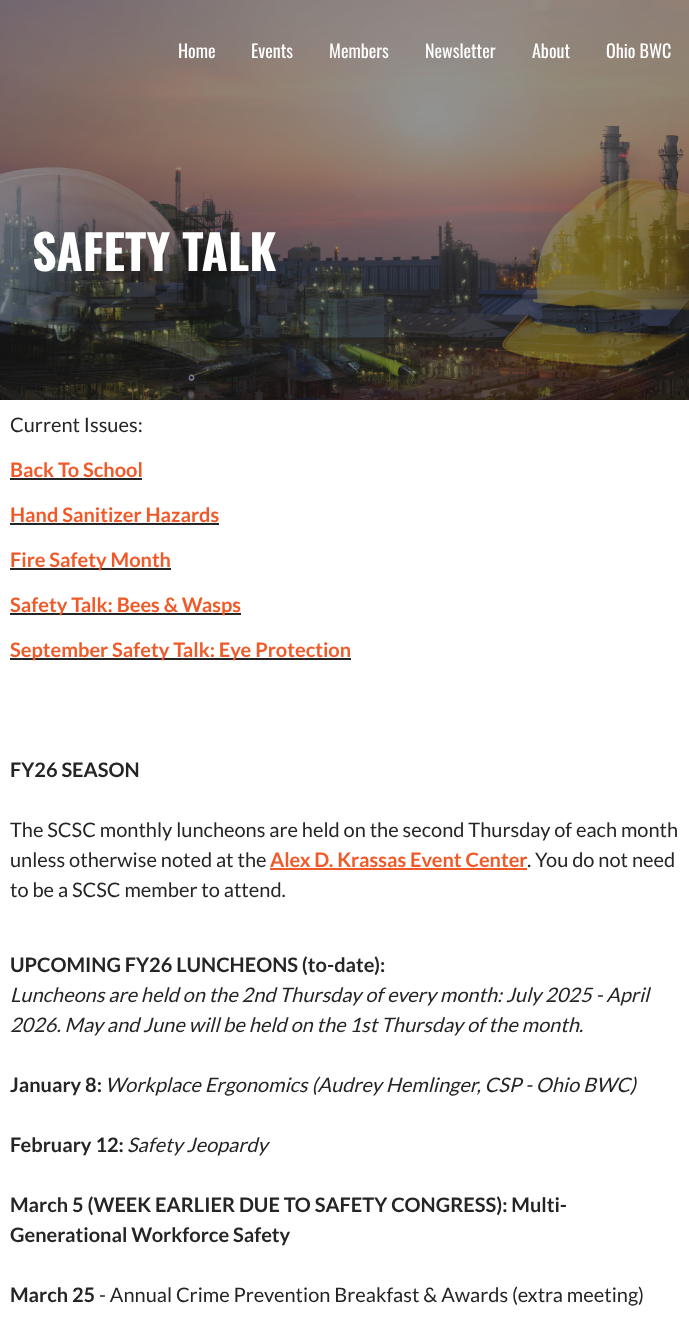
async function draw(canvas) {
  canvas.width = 689
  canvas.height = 1334
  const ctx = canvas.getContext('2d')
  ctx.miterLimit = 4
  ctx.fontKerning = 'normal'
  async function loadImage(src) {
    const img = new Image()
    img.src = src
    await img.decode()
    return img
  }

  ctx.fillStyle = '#fff'
  ctx.fillRect(0, 0, 689, 1334)
  ctx.drawImage(await loadImage('image0.png'), 0, 0, 689, 400)
  ctx.font = '18px Oswald'
  ctx.fillText('Home', 178, 58)
  ctx.fillText('Events', 251, 58)
  ctx.fillText('Members', 329, 58)
  ctx.fillText('Newsletter', 425, 58)
  ctx.fillText('About', 532, 58)
  ctx.fillText('Ohio BWC', 606, 58)
  ctx.font = 'bold 48px Oswald'
  ctx.fillText('SAFETY TALK', 32, 271)
  ctx.font = '20px Lato'
  ctx.fillStyle = '#252525'
  ctx.fillText('Current Issues:', 10, 432)
  ctx.font = 'bold 20px Lato'
  ctx.fillStyle = '#f05a28'
  ctx.fillText('Back To School', 10, 477)
  ctx.fillStyle = '#252525'
  ctx.fillRect(10, 478, 132, 2)
  ctx.fillStyle = '#f05a28'
  ctx.fillText('Hand Sanitizer Hazards', 10, 522)
  ctx.fillStyle = '#252525'
  ctx.fillRect(10, 523, 209, 2)
  ctx.fillRect(10, 568, 161, 2)
  ctx.fillStyle = '#f05a28'
  ctx.fillText('Fire Safety Month', 10, 567)
  ctx.fillStyle = '#252525'
  ctx.fillRect(10, 613, 231, 2)
  ctx.fillStyle = '#f05a28'
  ctx.fillText('Safety Talk: Bees & Wasps', 10, 612)
  ctx.fillStyle = '#252525'
  ctx.fillRect(10, 658, 341, 2)
  ctx.fillStyle = '#f05a28'
  ctx.fillText('September Safety Talk: Eye Protection', 10, 657)
  ctx.fillStyle = '#252525'
  ctx.fillText('FY26 SEASON', 10, 777)
  ctx.font = '20px Lato'
  ctx.fillText('The SCSC monthly luncheons are held on the second Thursday of each month', 10, 837)
  ctx.fillText('unless otherwise noted at the', 10, 867)
  ctx.font = 'bold 20px Lato'
  ctx.fillStyle = '#f05a28'
  ctx.fillText('Alex D. Krassas Event Center', 270, 867)
  ctx.fillRect(270, 868, 257, 2)
  ctx.font = '20px Lato'
  ctx.fillStyle = '#252525'
  ctx.fillText('. You do not need', 527, 867)
  ctx.fillText('to be a SCSC member to attend.', 10, 897)
  ctx.font = 'bold 20px Lato'
  ctx.fillText('UPCOMING FY26 LUNCHEONS (to-date):', 10, 972)
  ctx.font = 'italic 20px Lato'
  ctx.fillText('Luncheons are held on the 2nd Thursday of every month: July 2025 - April', 10, 1002)
  ctx.fillText('2026. May and June will be held on the 1st Thursday of the month.', 10, 1032)
  ctx.font = 'bold 20px Lato'
  ctx.fillText('January 8:', 10, 1092)
  ctx.font = 'italic 20px Lato'
  ctx.fillText('Workplace Ergonomics (Audrey Hemlinger, CSP - Ohio BWC)', 105, 1092)
  ctx.font = 'bold 20px Lato'
  ctx.fillText('February 12:', 10, 1152)
  ctx.font = 'italic 20px Lato'
  ctx.fillText('Safety Jeopardy', 127, 1152)
  ctx.font = 'bold 20px Lato'
  ctx.fillText('March 5 (WEEK EARLIER DUE TO SAFETY CONGRESS): Multi-', 10, 1212)
  ctx.fillText('Generational Workforce Safety', 10, 1242)
  ctx.fillText('March 25', 10, 1302)
  ctx.font = '20px Lato'
  ctx.fillText('- Annual Crime Prevention Breakfast & Awards (extra meeting)', 99, 1302)
}

draw(document.querySelector('canvas'))
